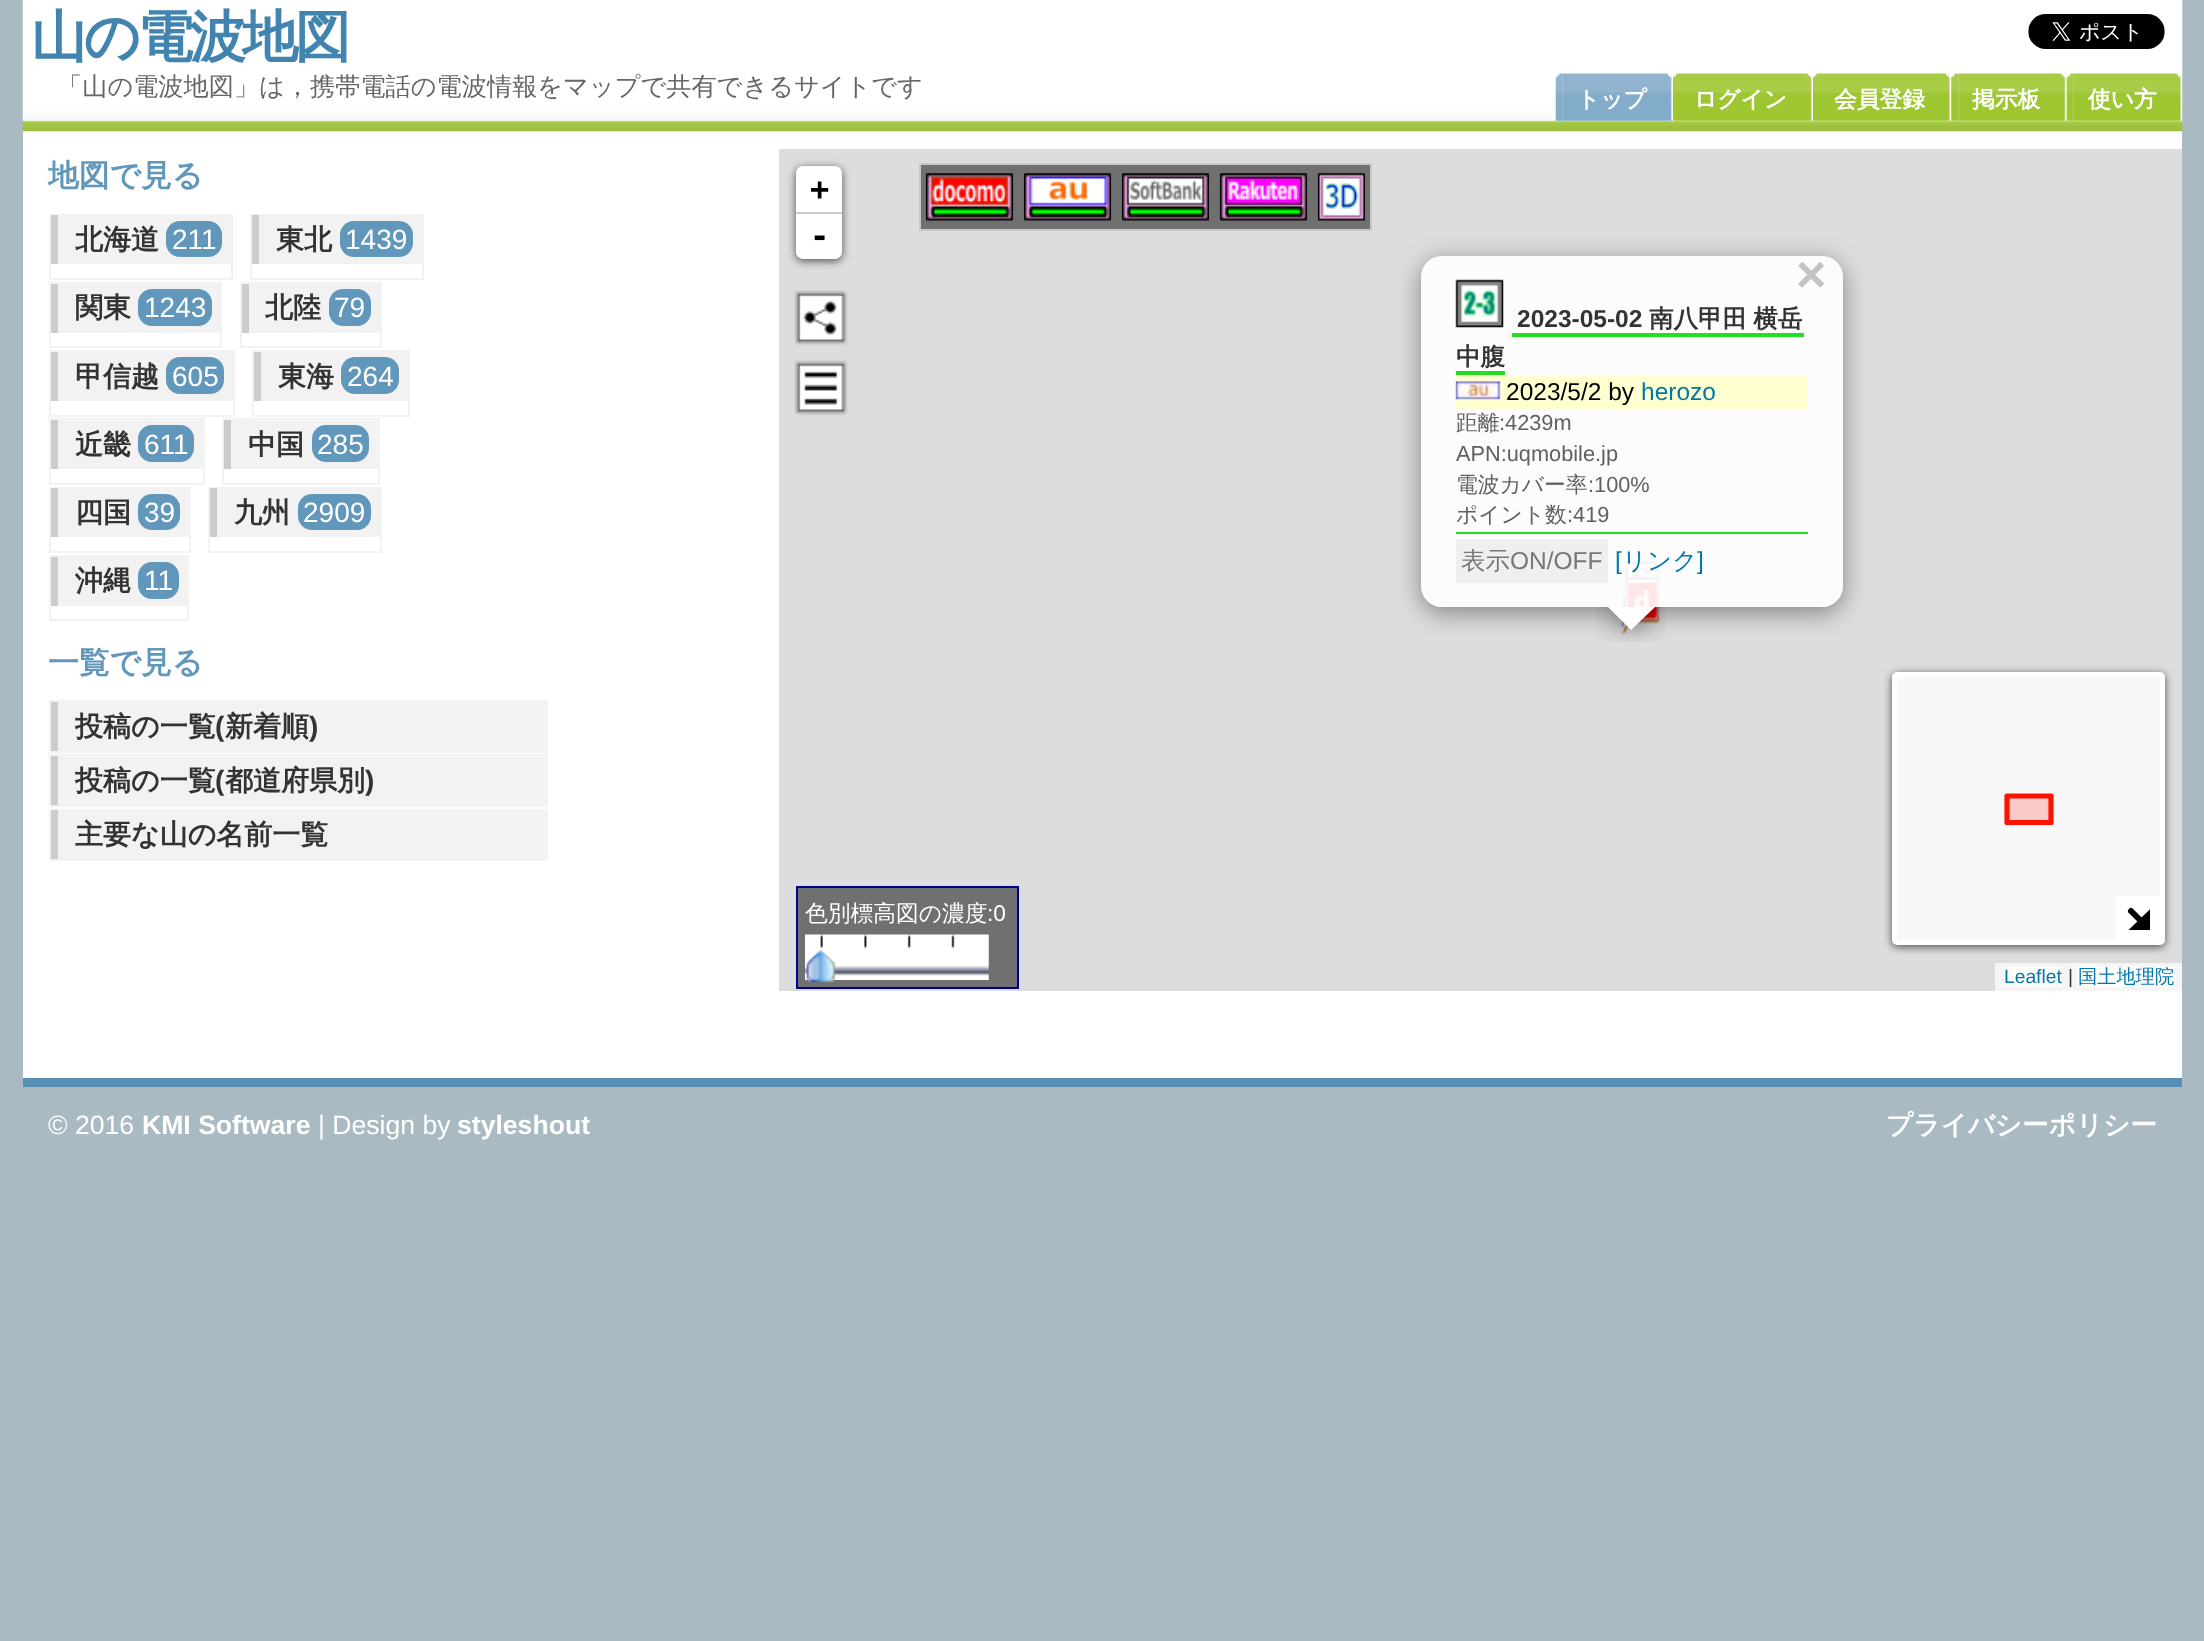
async function draw(canvas) {
  canvas.width = 2204
  canvas.height = 1641
  const ctx = canvas.getContext('2d')
  ctx.miterLimit = 4
  ctx.fontKerning = 'normal'
  async function loadImage(src) {
    const img = new Image()
    img.src = src
    await img.decode()
    return img
  }

  ctx.fillStyle = '#a9bac3'
  ctx.fillRect(0, 0, 2204, 1641)
  ctx.fillStyle = '#fff'
  ctx.fillRect(23, 131, 2159, 947)
  ctx.drawImage(await loadImage('image0.png'), 22, 0, 2161, 132)
  ctx.letterSpacing = '-3.5px'
  ctx.font = 'bold 56px WenQuanYi Zen Hei'
  ctx.fillStyle = '#4284b0'
  ctx.fillText('山の電波地図', 31, 56)
  ctx.drawImage(await loadImage('image1.png'), 2028, 14, 137, 35)
  ctx.letterSpacing = '0px'
  ctx.font = '500 25.2px WenQuanYi Zen Hei'
  ctx.fillStyle = '#666'
  ctx.fillText('「山の電波地図」は，携帯電話の電波情報をマップで共有できるサイトです', 57, 95)
  ctx.drawImage(await loadImage('image2.png'), 1555, 73, 8, 48)
  ctx.drawImage(await loadImage('image3.png'), 1562, 73, 110, 48)
  ctx.font = 'bold 22.75px WenQuanYi Zen Hei'
  ctx.fillStyle = '#fff'
  ctx.fillText('トップ', 1577, 107)
  ctx.drawImage(await loadImage('image4.png'), 1673, 73, 7, 48)
  ctx.drawImage(await loadImage('image5.png'), 1680, 73, 132, 48)
  ctx.fillText('ログイン', 1694, 107)
  ctx.drawImage(await loadImage('image6.png'), 1813, 73, 7, 48)
  ctx.drawImage(await loadImage('image7.png'), 1820, 73, 130, 48)
  ctx.fillText('会員登録', 1834, 107)
  ctx.drawImage(await loadImage('image8.png'), 1951, 73, 8, 48)
  ctx.drawImage(await loadImage('image9.png'), 1958, 73, 108, 48)
  ctx.fillText('掲示板', 1972, 107)
  ctx.drawImage(await loadImage('image10.png'), 2066, 73, 8, 48)
  ctx.drawImage(await loadImage('image11.png'), 2073, 73, 108, 48)
  ctx.fillText('使い方', 2088, 107)
  ctx.font = 'bold 30.75px WenQuanYi Zen Hei'
  ctx.fillStyle = '#6297bc'
  ctx.fillText('地図で見る', 48, 186)
  ctx.strokeStyle = '#f2f2f2'
  ctx.lineWidth = 2
  ctx.strokeRect(50, 215, 182, 64)
  ctx.fillStyle = '#f2f2f2'
  ctx.fillRect(58, 216, 173, 48)
  ctx.fillStyle = '#ccc'
  ctx.fillRect(51, 215, 7, 49)
  ctx.font = 'bold 28px WenQuanYi Zen Hei'
  ctx.fillStyle = '#333'
  ctx.fillText('北海道', 75, 249)
  ctx.fillStyle = '#6297bc'
  ctx.beginPath()
  ctx.roundRect(166, 221, 56, 36, 14)
  ctx.fill()
  ctx.font = '28px Liberation Sans'
  ctx.fillStyle = '#fff'
  ctx.fillText('211', 172, 249)
  ctx.strokeRect(251, 215, 172, 64)
  ctx.fillStyle = '#f2f2f2'
  ctx.fillRect(259, 216, 163, 48)
  ctx.fillStyle = '#ccc'
  ctx.fillRect(252, 215, 7, 49)
  ctx.font = 'bold 28px WenQuanYi Zen Hei'
  ctx.fillStyle = '#333'
  ctx.fillText('東北', 276, 249)
  ctx.fillStyle = '#6297bc'
  ctx.beginPath()
  ctx.roundRect(340, 221, 73, 36, 14)
  ctx.fill()
  ctx.font = '28px Liberation Sans'
  ctx.fillStyle = '#fff'
  ctx.fillText('1439', 345, 249)
  ctx.strokeRect(50, 283, 171, 64)
  ctx.fillStyle = '#f2f2f2'
  ctx.fillRect(58, 284, 162, 49)
  ctx.fillStyle = '#ccc'
  ctx.fillRect(51, 284, 7, 49)
  ctx.font = 'bold 28px WenQuanYi Zen Hei'
  ctx.fillStyle = '#333'
  ctx.fillText('関東', 75, 317)
  ctx.fillStyle = '#6297bc'
  ctx.beginPath()
  ctx.roundRect(138, 289, 74, 37, 14)
  ctx.fill()
  ctx.font = '28px Liberation Sans'
  ctx.fillStyle = '#fff'
  ctx.fillText('1243', 144, 317)
  ctx.strokeRect(241, 283, 140, 64)
  ctx.fillStyle = '#f2f2f2'
  ctx.fillRect(249, 284, 131, 49)
  ctx.fillStyle = '#ccc'
  ctx.fillRect(242, 284, 7, 49)
  ctx.font = 'bold 28px WenQuanYi Zen Hei'
  ctx.fillStyle = '#333'
  ctx.fillText('北陸', 265, 317)
  ctx.fillStyle = '#6297bc'
  ctx.beginPath()
  ctx.roundRect(329, 289, 42, 37, 14)
  ctx.fill()
  ctx.font = '28px Liberation Sans'
  ctx.fillStyle = '#fff'
  ctx.fillText('79', 334, 317)
  ctx.strokeRect(50, 351, 184, 65)
  ctx.fillStyle = '#f2f2f2'
  ctx.fillRect(58, 352, 175, 49)
  ctx.fillStyle = '#ccc'
  ctx.fillRect(51, 352, 7, 49)
  ctx.font = 'bold 28px WenQuanYi Zen Hei'
  ctx.fillStyle = '#333'
  ctx.fillText('甲信越', 75, 386)
  ctx.fillStyle = '#6297bc'
  ctx.beginPath()
  ctx.roundRect(166, 357, 58, 37, 14)
  ctx.fill()
  ctx.font = '28px Liberation Sans'
  ctx.fillStyle = '#fff'
  ctx.fillText('605', 172, 386)
  ctx.strokeRect(253, 351, 156, 65)
  ctx.fillStyle = '#f2f2f2'
  ctx.fillRect(261, 352, 147, 49)
  ctx.fillStyle = '#ccc'
  ctx.fillRect(254, 352, 7, 49)
  ctx.font = 'bold 28px WenQuanYi Zen Hei'
  ctx.fillStyle = '#333'
  ctx.fillText('東海', 278, 386)
  ctx.fillStyle = '#6297bc'
  ctx.beginPath()
  ctx.roundRect(341, 357, 58, 37, 14)
  ctx.fill()
  ctx.font = '28px Liberation Sans'
  ctx.fillStyle = '#fff'
  ctx.fillText('264', 347, 386)
  ctx.strokeRect(50, 419, 154, 65)
  ctx.fillStyle = '#f2f2f2'
  ctx.fillRect(58, 420, 145, 49)
  ctx.fillStyle = '#ccc'
  ctx.fillRect(51, 420, 7, 49)
  ctx.font = 'bold 28px WenQuanYi Zen Hei'
  ctx.fillStyle = '#333'
  ctx.fillText('近畿', 75, 454)
  ctx.fillStyle = '#6297bc'
  ctx.beginPath()
  ctx.roundRect(138, 425, 56, 37, 14)
  ctx.fill()
  ctx.font = '28px Liberation Sans'
  ctx.fillStyle = '#fff'
  ctx.fillText('611', 144, 454)
  ctx.strokeRect(223, 419, 156, 65)
  ctx.fillStyle = '#f2f2f2'
  ctx.fillRect(231, 420, 147, 49)
  ctx.fillStyle = '#ccc'
  ctx.fillRect(224, 420, 7, 49)
  ctx.font = 'bold 28px WenQuanYi Zen Hei'
  ctx.fillStyle = '#333'
  ctx.fillText('中国', 248, 454)
  ctx.fillStyle = '#6297bc'
  ctx.beginPath()
  ctx.roundRect(312, 425, 57, 37, 14)
  ctx.fill()
  ctx.font = '28px Liberation Sans'
  ctx.fillStyle = '#fff'
  ctx.fillText('285', 317, 454)
  ctx.strokeRect(50, 488, 140, 64)
  ctx.fillStyle = '#f2f2f2'
  ctx.fillRect(58, 489, 131, 48)
  ctx.fillStyle = '#ccc'
  ctx.fillRect(51, 488, 7, 49)
  ctx.font = 'bold 28px WenQuanYi Zen Hei'
  ctx.fillStyle = '#333'
  ctx.fillText('四国', 75, 522)
  ctx.fillStyle = '#6297bc'
  ctx.beginPath()
  ctx.roundRect(138, 494, 42, 36, 14)
  ctx.fill()
  ctx.font = '28px Liberation Sans'
  ctx.fillStyle = '#fff'
  ctx.fillText('39', 144, 522)
  ctx.strokeRect(209, 488, 172, 64)
  ctx.fillStyle = '#f2f2f2'
  ctx.fillRect(217, 489, 163, 48)
  ctx.fillStyle = '#ccc'
  ctx.fillRect(210, 488, 7, 49)
  ctx.font = 'bold 28px WenQuanYi Zen Hei'
  ctx.fillStyle = '#333'
  ctx.fillText('九州', 234, 522)
  ctx.fillStyle = '#6297bc'
  ctx.beginPath()
  ctx.roundRect(298, 494, 73, 36, 14)
  ctx.fill()
  ctx.font = '28px Liberation Sans'
  ctx.fillStyle = '#fff'
  ctx.fillText('2909', 303, 522)
  ctx.strokeRect(50, 556, 138, 64)
  ctx.fillStyle = '#f2f2f2'
  ctx.fillRect(58, 557, 129, 49)
  ctx.fillStyle = '#ccc'
  ctx.fillRect(51, 557, 7, 49)
  ctx.font = 'bold 28px WenQuanYi Zen Hei'
  ctx.fillStyle = '#333'
  ctx.fillText('沖縄', 75, 590)
  ctx.fillStyle = '#6297bc'
  ctx.beginPath()
  ctx.roundRect(138, 562, 41, 37, 14)
  ctx.fill()
  ctx.font = '28px Liberation Sans'
  ctx.fillStyle = '#fff'
  ctx.fillText('11', 144, 590)
  ctx.font = 'bold 30.75px WenQuanYi Zen Hei'
  ctx.fillStyle = '#6297bc'
  ctx.fillText('一覧で見る', 48, 673)
  ctx.strokeRect(50, 701, 497, 51)
  ctx.fillStyle = '#f2f2f2'
  ctx.fillRect(58, 702, 488, 49)
  ctx.fillStyle = '#ccc'
  ctx.fillRect(51, 702, 7, 49)
  ctx.font = 'bold 28px WenQuanYi Zen Hei'
  ctx.fillStyle = '#333'
  ctx.fillText('投稿の一覧', 75, 736)
  ctx.font = 'bold 28px Liberation Sans'
  ctx.fillText('(', 215, 736)
  ctx.font = 'bold 28px WenQuanYi Zen Hei'
  ctx.fillText('新着順', 225, 736)
  ctx.font = 'bold 28px Liberation Sans'
  ctx.fillText(')', 309, 736)
  ctx.strokeRect(50, 755, 497, 51)
  ctx.fillStyle = '#f2f2f2'
  ctx.fillRect(58, 756, 488, 49)
  ctx.fillStyle = '#ccc'
  ctx.fillRect(51, 756, 7, 49)
  ctx.font = 'bold 28px WenQuanYi Zen Hei'
  ctx.fillStyle = '#333'
  ctx.fillText('投稿の一覧', 75, 790)
  ctx.font = 'bold 28px Liberation Sans'
  ctx.fillText('(', 215, 790)
  ctx.font = 'bold 28px WenQuanYi Zen Hei'
  ctx.fillText('都道府県別', 225, 790)
  ctx.font = 'bold 28px Liberation Sans'
  ctx.fillText(')', 365, 790)
  ctx.strokeRect(50, 810, 497, 50)
  ctx.fillStyle = '#f2f2f2'
  ctx.fillRect(58, 811, 488, 48)
  ctx.fillStyle = '#ccc'
  ctx.fillRect(51, 810, 7, 49)
  ctx.font = 'bold 28px WenQuanYi Zen Hei'
  ctx.fillStyle = '#333'
  ctx.fillText('主要な山の名前一覧', 75, 844)
  ctx.fillStyle = '#ddd'
  ctx.fillRect(779, 149, 1403, 842)
  ctx.fillStyle = '#707070'
  ctx.beginPath()
  ctx.rect(920, 164, 451, 66)
  ctx.fill()
  ctx.strokeStyle = '#c8c8c8'
  ctx.stroke()
  ctx.drawImage(await loadImage('image12.png'), 925, 173, 89, 48)
  ctx.drawImage(await loadImage('image13.png'), 1023, 173, 89, 48)
  ctx.drawImage(await loadImage('image14.png'), 1121, 173, 89, 48)
  ctx.drawImage(await loadImage('image15.png'), 1219, 173, 89, 48)
  ctx.drawImage(await loadImage('image16.png'), 1317, 173, 48, 48)
  ctx.fillStyle = '#000000a6'
  ctx.filter = 'blur(4.5px)'
  ctx.beginPath()
  ctx.roundRect(796, 168, 46, 93, 7)
  ctx.fill()
  ctx.filter = 'none'
  ctx.fillStyle = '#fff'
  ctx.beginPath()
  ctx.roundRect(796, 166, 46, 48, [7, 7, 0, 0])
  ctx.fill()
  ctx.fillStyle = '#ccc'
  ctx.fillRect(796, 212, 46, 2)
  ctx.font = 'bold 32px DejaVu Sans Mono'
  ctx.fillStyle = '#000'
  ctx.fillText('+', 810, 200)
  ctx.fillStyle = '#fff'
  ctx.beginPath()
  ctx.roundRect(796, 214, 46, 45, [0, 0, 7, 7])
  ctx.fill()
  ctx.fillStyle = '#000'
  ctx.fillText('-', 810, 247)
  ctx.fillStyle = '#000000a6'
  ctx.filter = 'blur(4.5px)'
  ctx.beginPath()
  ctx.roundRect(1892, 674, 273, 273, 5)
  ctx.fill()
  ctx.filter = 'none'
  ctx.fillStyle = '#f8f8f9'
  ctx.beginPath()
  ctx.roundRect(1894.5, 674.5, 268, 268, 2.5)
  ctx.fill()
  ctx.strokeStyle = '#fff'
  ctx.lineWidth = 5
  ctx.stroke()
  ctx.fillStyle = '#f9cac7'
  ctx.fillRect(2009, 798, 40, 22)
  ctx.beginPath()
  ctx.moveTo(2007, 822.5)
  ctx.lineTo(2007, 796)
  ctx.lineTo(2051, 796)
  ctx.lineTo(2051, 822.5)
  ctx.closePath()
  ctx.strokeStyle = '#f10'
  ctx.lineWidth = 5.2
  ctx.lineCap = 'round'
  ctx.lineJoin = 'round'
  ctx.stroke()
  ctx.fillStyle = '#fff'
  ctx.beginPath()
  ctx.roundRect(2116, 896, 44, 44, [5, 0, 0, 0])
  ctx.fill()
  ctx.fillStyle = '#000'
  ctx.beginPath()
  ctx.moveTo(2148, 928)
  ctx.lineTo(2148, 914)
  ctx.lineTo(2133.5, 928)
  ctx.closePath()
  ctx.fill()
  ctx.strokeStyle = '#000'
  ctx.lineWidth = 4
  ctx.lineCap = 'butt'
  ctx.lineJoin = 'miter'
  ctx.stroke()
  ctx.beginPath()
  ctx.moveTo(2147, 927)
  ctx.lineTo(2131, 911)
  ctx.lineWidth = 6
  ctx.lineCap = 'round'
  ctx.stroke()
  ctx.fillStyle = '#f5f5f5'
  ctx.fillRect(1995, 963, 187, 28)
  ctx.fillStyle = '#fcfcfc'
  ctx.fillRect(2004, 966, 58, 21)
  ctx.font = '19.25px Liberation Sans'
  ctx.fillStyle = '#0078a8'
  ctx.fillText('Leaflet', 2004, 983)
  ctx.fillStyle = '#333'
  ctx.fillText('|', 2068, 983)
  ctx.fillStyle = '#fcfcfc'
  ctx.fillRect(2077, 966, 97, 21)
  ctx.font = '500 19.25px WenQuanYi Zen Hei'
  ctx.fillStyle = '#0078a8'
  ctx.fillText('国土地理院', 2078, 983)
  ctx.drawImage(await loadImage('image19.png'), 1621, 561, 39, 46)
  ctx.drawImage(await loadImage('image20.png'), 1621, 577, 39, 54)
  ctx.drawImage(await loadImage('image21.png'), 1621, 581, 39, 53)
  ctx.save()
  ctx.beginPath()
  ctx.moveTo(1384, 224)
  ctx.lineTo(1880, 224)
  ctx.lineTo(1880, 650)
  ctx.lineTo(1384, 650)
  ctx.closePath()
  ctx.moveTo(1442, 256)
  ctx.lineTo(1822, 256)
  ctx.bezierCurveTo(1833.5, 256, 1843, 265.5, 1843, 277)
  ctx.lineTo(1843, 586)
  ctx.bezierCurveTo(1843, 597.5, 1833.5, 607, 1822, 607)
  ctx.lineTo(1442, 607)
  ctx.bezierCurveTo(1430.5, 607, 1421, 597.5, 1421, 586)
  ctx.lineTo(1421, 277)
  ctx.bezierCurveTo(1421, 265.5, 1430.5, 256, 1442, 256)
  ctx.closePath()
  ctx.clip('evenodd')
  ctx.fillStyle = '#00000066'
  ctx.filter = 'blur(12px)'
  ctx.beginPath()
  ctx.roundRect(1421, 261, 422, 352, 21)
  ctx.fill()
  ctx.filter = 'none'
  ctx.restore()
  ctx.fillStyle = '#ffffffe6'
  ctx.beginPath()
  ctx.roundRect(1421, 256, 422, 351, 21)
  ctx.fill()
  ctx.font = 'bold 52px Liberation Sans'
  ctx.fillStyle = '#c3c3c3'
  ctx.fillText('×', 1796, 292)
  ctx.drawImage(await loadImage('image17.png'), 1455, 279, 49, 49)
  ctx.font = 'bold 24.5px Liberation Sans'
  ctx.fillStyle = '#333'
  ctx.fillText('2023-05-02', 1517, 327)
  ctx.fillStyle = '#20e020'
  ctx.fillRect(1512, 333, 292, 4)
  ctx.wordSpacing = '-1px'
  ctx.font = 'bold 24.5px WenQuanYi Zen Hei'
  ctx.fillStyle = '#333'
  ctx.fillText('南八甲田 横岳', 1649, 327)
  ctx.wordSpacing = '0px'
  ctx.fillText('中腹', 1456, 365)
  ctx.fillStyle = '#20e020'
  ctx.fillRect(1456, 371, 49, 4)
  ctx.fillStyle = '#ffffd0'
  ctx.fillRect(1456, 375, 352, 35)
  ctx.drawImage(await loadImage('image18.png'), 1455, 381, 46, 19)
  ctx.font = '24.5px Liberation Sans'
  ctx.fillStyle = '#000'
  ctx.fillText('2023/5/2 by', 1506, 400)
  ctx.fillStyle = '#0078a8'
  ctx.fillText('herozo', 1641, 400)
  ctx.font = '500 21.75px WenQuanYi Zen Hei'
  ctx.fillStyle = '#606060'
  ctx.fillText('距離', 1456, 430)
  ctx.font = '21.75px Liberation Sans'
  ctx.fillText(':4239m', 1499, 430)
  ctx.fillText('APN:uqmobile.jp', 1456, 461)
  ctx.font = '500 21.75px WenQuanYi Zen Hei'
  ctx.fillText('電波カバー率', 1456, 492)
  ctx.font = '21.75px Liberation Sans'
  ctx.fillText(':100%', 1588, 492)
  ctx.font = '500 21.75px WenQuanYi Zen Hei'
  ctx.fillText('ポイント数', 1456, 522)
  ctx.font = '21.75px Liberation Sans'
  ctx.fillText(':419', 1567, 522)
  ctx.fillStyle = '#20e020'
  ctx.fillRect(1456, 532, 352, 2)
  ctx.fillStyle = '#efefef'
  ctx.fillRect(1456, 539, 152, 44)
  ctx.font = '500 24.5px WenQuanYi Zen Hei'
  ctx.fillStyle = '#777'
  ctx.fillText('表示', 1461, 569)
  ctx.font = '24.5px Liberation Sans'
  ctx.fillText('ON/OFF', 1510, 569)
  ctx.fillStyle = '#0078a8'
  ctx.fillText('[', 1615, 569)
  ctx.font = '500 24.5px WenQuanYi Zen Hei'
  ctx.fillText('リンク', 1622, 569)
  ctx.font = '24.5px Liberation Sans'
  ctx.fillText(']', 1697, 569)
  ctx.save()
  ctx.beginPath()
  ctx.rect(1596, 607, 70, 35)
  ctx.clip()
  ctx.fillStyle = '#00000066'
  ctx.filter = 'blur(12.5px)'
  ctx.beginPath()
  ctx.rect(1615, 595, 34, 33)
  ctx.fill()
  ctx.filter = 'none'
  ctx.restore()
  ctx.save()
  ctx.beginPath()
  ctx.rect(1596, 607, 70, 35)
  ctx.clip()
  ctx.fillStyle = '#fff'
  ctx.beginPath()
  ctx.moveTo(1631, 583)
  ctx.lineTo(1655, 607)
  ctx.lineTo(1631, 630)
  ctx.lineTo(1608, 607)
  ctx.closePath()
  ctx.fill()
  ctx.restore()
  ctx.drawImage(await loadImage('image22.png'), 794, 290, 54, 56)
  ctx.drawImage(await loadImage('image23.png'), 794, 360, 54, 56)
  ctx.fillStyle = '#707070'
  ctx.beginPath()
  ctx.rect(797, 887, 221, 101)
  ctx.fill()
  ctx.strokeStyle = '#000090'
  ctx.lineWidth = 2
  ctx.stroke()
  ctx.font = '500 22.75px WenQuanYi Zen Hei'
  ctx.fillStyle = '#fff'
  ctx.fillText('色別標高図の濃度', 805, 921)
  ctx.font = '22.75px Liberation Sans'
  ctx.fillText(':0', 987, 921)
  ctx.drawImage(await loadImage('image24.png'), 805, 934, 184, 46)
  ctx.drawImage(await loadImage('image25.png'), 806, 949, 30, 34)
  ctx.fillStyle = '#568eb6'
  ctx.fillRect(23, 1078, 2159, 9)
  ctx.font = '26.6px Liberation Sans'
  ctx.fillStyle = '#fff'
  ctx.fillText('© 2016', 48, 1134)
  ctx.font = 'bold 26.6px Liberation Sans'
  ctx.fillText('KMI Software', 142, 1134)
  ctx.font = '26.6px Liberation Sans'
  ctx.fillText('| Design by', 318, 1134)
  ctx.font = 'bold 26.6px Liberation Sans'
  ctx.fillText('styleshout', 457, 1134)
  ctx.font = 'bold 26.6px WenQuanYi Zen Hei'
  ctx.fillText('プライバシーポリシー', 1886, 1134)
}

draw(document.querySelector('canvas'))
